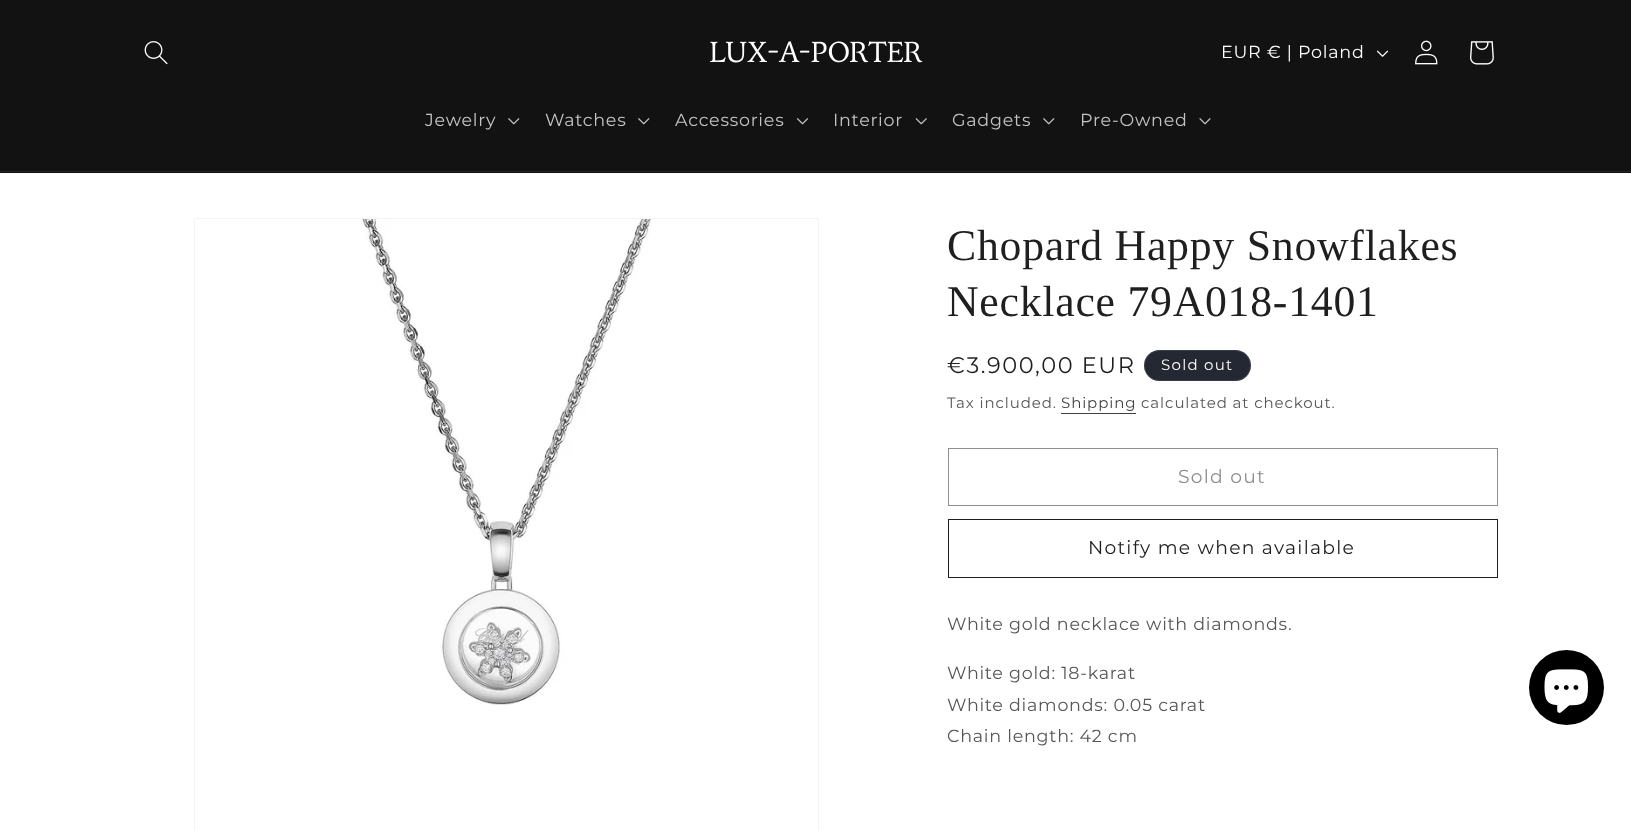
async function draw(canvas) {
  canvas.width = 1631
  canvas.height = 831
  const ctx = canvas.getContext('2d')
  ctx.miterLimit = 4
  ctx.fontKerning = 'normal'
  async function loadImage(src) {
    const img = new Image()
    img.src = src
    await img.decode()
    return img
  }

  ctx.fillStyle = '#fff'
  ctx.fillRect(0, 0, 1631, 831)
  ctx.fillStyle = '#121212'
  ctx.fillRect(0, 0, 1631, 173)
  ctx.fillStyle = '#252525'
  ctx.fillRect(0, 171, 1631, 1)
  ctx.drawImage(await loadImage('image0.png'), 144, 41, 24, 24)
  ctx.drawImage(await loadImage('image1.png'), 710, 41, 213, 22)
  ctx.letterSpacing = '0.75px'
  ctx.font = '17.5px Montserrat'
  ctx.fillStyle = '#fff'
  ctx.fillText('EUR € | Poland', 1221, 58)
  ctx.drawImage(await loadImage('image2.png'), 1376, 50, 13, 7)
  ctx.drawImage(await loadImage('image3.png'), 1415, 40, 23, 25)
  ctx.drawImage(await loadImage('image4.png'), 1470, 41, 24, 24)
  ctx.fillStyle = '#c4c4c4'
  ctx.fillText('Jewelry', 425, 126)
  ctx.drawImage(await loadImage('image5.png'), 508, 118, 12, 7)
  ctx.fillText('Watches', 545, 126)
  ctx.drawImage(await loadImage('image5.png'), 638, 118, 12, 7)
  ctx.fillText('Accessories', 675, 126)
  ctx.drawImage(await loadImage('image6.png'), 796, 118, 13, 7)
  ctx.fillText('Interior', 833, 126)
  ctx.drawImage(await loadImage('image7.png'), 915, 118, 12, 7)
  ctx.fillText('Gadgets', 952, 126)
  ctx.drawImage(await loadImage('image5.png'), 1043, 118, 12, 7)
  ctx.fillText('Pre-Owned', 1080, 126)
  ctx.drawImage(await loadImage('image8.png'), 1199, 118, 12, 7)
  ctx.strokeStyle = '#f4f4f4'
  ctx.strokeRect(194.5, 218.5, 624, 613)
  ctx.drawImage(await loadImage('image9.png'), 362, 219, 289, 486)
  ctx.font = '43.75px Liberation Serif'
  ctx.fillStyle = '#1f1f1f'
  ctx.fillText('Chopard Happy Snowflakes', 947, 260)
  ctx.fillText('Necklace 79A018-1401', 947, 316)
  ctx.letterSpacing = '1.6px'
  ctx.font = '22.5px Montserrat'
  ctx.fillText('€3.900,00 EUR', 947, 373)
  ctx.fillStyle = '#242833'
  ctx.beginPath()
  ctx.roundRect(1144, 350, 107, 31, 15.5)
  ctx.fill()
  ctx.beginPath()
  ctx.roundRect(1144.5, 350.5, 106, 30, 15)
  ctx.strokeStyle = '#ffffff1a'
  ctx.stroke()
  ctx.letterSpacing = '1.25px'
  ctx.font = '15px Montserrat'
  ctx.fillStyle = '#fff'
  ctx.fillText('Sold out', 1161, 370)
  ctx.letterSpacing = '0.9px'
  ctx.fillStyle = '#575757'
  ctx.fillText('Tax included.', 947, 408)
  ctx.fillStyle = '#414141'
  ctx.fillText('Shipping', 1061, 408)
  ctx.fillRect(1061, 413, 75, 1)
  ctx.fillStyle = '#575757'
  ctx.fillText('calculated at checkout.', 1141, 408)
  ctx.strokeStyle = '#8f8f8f'
  ctx.strokeRect(948.5, 448.5, 549, 57)
  ctx.letterSpacing = '1.25px'
  ctx.font = '18.75px Montserrat'
  ctx.fillStyle = '#8f8f8f'
  ctx.fillText('Sold out', 1178, 483)
  ctx.strokeStyle = '#1f1f1f'
  ctx.strokeRect(948.5, 519.5, 549, 58)
  ctx.fillStyle = '#1f1f1f'
  ctx.fillText('Notify me when available', 1088, 554)
  ctx.letterSpacing = '0.75px'
  ctx.font = '17.5px Montserrat'
  ctx.fillStyle = '#575757'
  ctx.fillText('White gold necklace with diamonds.', 947, 630)
  ctx.fillText('White gold: 18-karat', 947, 679)
  ctx.fillText('White diamonds: 0.05 carat', 947, 711)
  ctx.fillText('Chain length: 42 cm', 947, 742)
  ctx.fillStyle = '#000'
  ctx.beginPath()
  ctx.arc(1566.5, 687.5, 37.5, 0, 2 * Math.PI)
  ctx.fill()
  ctx.drawImage(await loadImage('image10.png'), 1544, 669, 44, 44)
}

draw(document.querySelector('canvas'))
